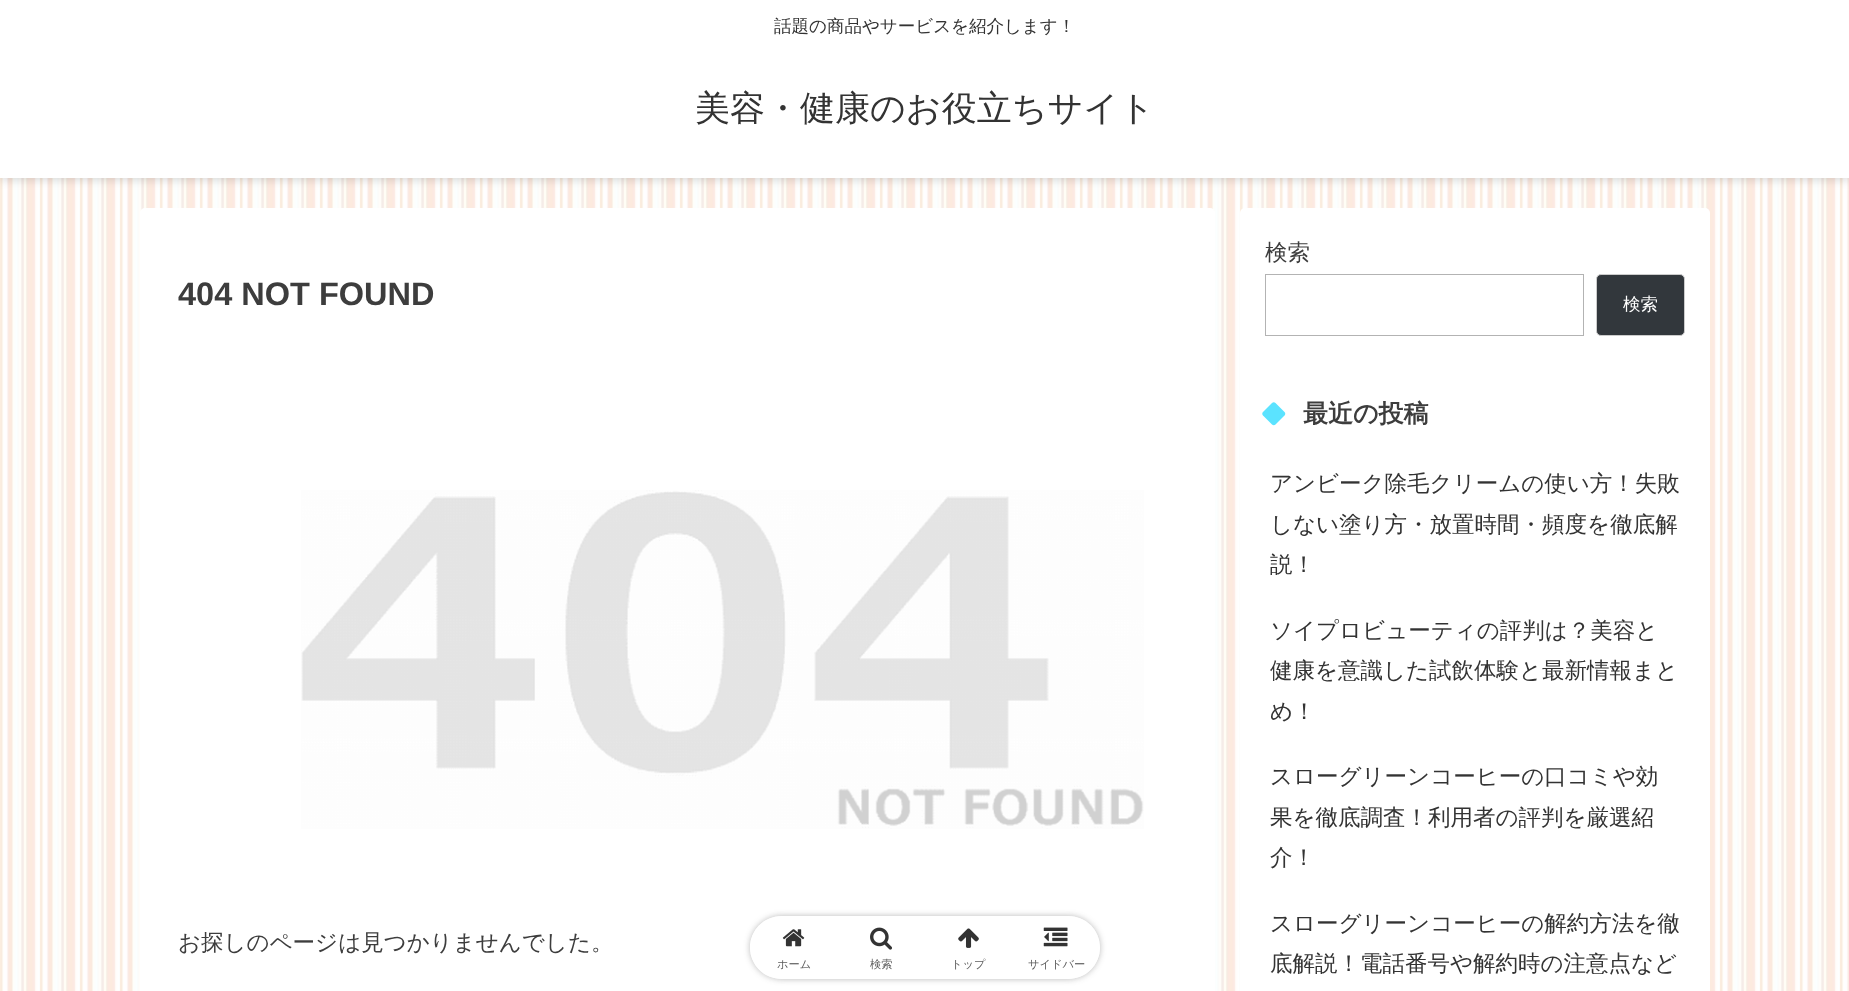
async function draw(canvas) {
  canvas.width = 1849
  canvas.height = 991
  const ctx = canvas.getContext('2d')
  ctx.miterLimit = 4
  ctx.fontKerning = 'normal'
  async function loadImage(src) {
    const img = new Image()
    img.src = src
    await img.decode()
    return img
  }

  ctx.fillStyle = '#fff'
  ctx.fillRect(0, 0, 1849, 991)
  ctx.drawImage(await loadImage('image0.png'), 0, 178, 1849, 813)
  ctx.fillStyle = '#00000026'
  ctx.filter = 'blur(5px)'
  ctx.beginPath()
  ctx.rect(0, 3, 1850, 177)
  ctx.fill()
  ctx.filter = 'none'
  ctx.fillStyle = '#fff'
  ctx.fillRect(0, 0, 1849, 178)
  ctx.font = '500 17.5px WenQuanYi Zen Hei'
  ctx.fillStyle = '#333'
  ctx.fillText('話題の商品やサービスを紹介します！', 774, 32)
  ctx.font = '500 35px WenQuanYi Zen Hei'
  ctx.fillText('美容・健康のお役立ちサイト', 695, 120)
  ctx.fillStyle = '#fff'
  ctx.beginPath()
  ctx.roundRect(140, 208, 1075, 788, 5)
  ctx.fill()
  ctx.font = 'bold 32.5px Liberation Sans'
  ctx.fillStyle = '#3d3d3d'
  ctx.fillText('404 NOT FOUND', 178, 305)
  ctx.drawImage(await loadImage('image1.png'), 301, 490, 843, 339)
  ctx.font = '500 22.5px WenQuanYi Zen Hei'
  ctx.fillText('お探しのページは見つかりませんでした。', 178, 950)
  ctx.fillStyle = '#fff'
  ctx.beginPath()
  ctx.roundRect(1240, 208, 470, 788, 5)
  ctx.fill()
  ctx.fillStyle = '#3d3d3d'
  ctx.fillText('検索', 1265, 260)
  ctx.strokeStyle = '#b3b3b3'
  ctx.strokeRect(1265.5, 274.5, 318, 61)
  ctx.fillStyle = '#32373c'
  ctx.beginPath()
  ctx.roundRect(1596.5, 274.5, 88, 61, 4.5)
  ctx.fill()
  ctx.strokeStyle = '#ccc'
  ctx.stroke()
  ctx.font = '500 17.5px WenQuanYi Zen Hei'
  ctx.fillStyle = '#fff'
  ctx.fillText('検索', 1623, 310)
  ctx.fillStyle = '#5be3ff'
  ctx.beginPath()
  ctx.moveTo(1275.5, 403)
  ctx.lineTo(1284.5, 412)
  ctx.bezierCurveTo(1285.5, 413, 1285.5, 414.5, 1284.5, 415.5)
  ctx.lineTo(1275.5, 424.5)
  ctx.bezierCurveTo(1274.5, 425.5, 1273, 425.5, 1272, 424.5)
  ctx.lineTo(1263, 415.5)
  ctx.bezierCurveTo(1262, 414.5, 1262, 413, 1263, 412)
  ctx.lineTo(1272, 403)
  ctx.bezierCurveTo(1273, 402, 1274.5, 402, 1275.5, 403)
  ctx.closePath()
  ctx.fill()
  ctx.font = 'bold 25px WenQuanYi Zen Hei'
  ctx.fillStyle = '#3d3d3d'
  ctx.fillText('最近の投稿', 1303, 422)
  ctx.font = '500 22.5px WenQuanYi Zen Hei'
  ctx.fillStyle = '#333'
  ctx.fillText('アンビーク除毛クリームの使い方！失敗', 1270, 491)
  ctx.fillText('しない塗り方・放置時間・頻度を徹底解', 1270, 532)
  ctx.fillText('説！', 1270, 572)
  ctx.fillText('ソイプロビューティの評判は？美容と', 1270, 638)
  ctx.fillText('健康を意識した試飲体験と最新情報まと', 1270, 678)
  ctx.fillText('め！', 1270, 719)
  ctx.fillText('スローグリーンコーヒーの口コミや効', 1270, 784)
  ctx.fillText('果を徹底調査！利用者の評判を厳選紹', 1270, 825)
  ctx.fillText('介！', 1270, 865)
  ctx.fillText('スローグリーンコーヒーの解約方法を徹', 1270, 931)
  ctx.fillText('底解説！電話番号や解約時の注意点など', 1270, 971)
  ctx.save()
  ctx.beginPath()
  ctx.moveTo(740, 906)
  ctx.lineTo(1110, 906)
  ctx.lineTo(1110, 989)
  ctx.lineTo(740, 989)
  ctx.closePath()
  ctx.moveTo(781.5, 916)
  ctx.lineTo(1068.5, 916)
  ctx.bezierCurveTo(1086, 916, 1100, 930, 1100, 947.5)
  ctx.bezierCurveTo(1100, 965, 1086, 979, 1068.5, 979)
  ctx.lineTo(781.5, 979)
  ctx.bezierCurveTo(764, 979, 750, 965, 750, 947.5)
  ctx.bezierCurveTo(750, 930, 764, 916, 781.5, 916)
  ctx.closePath()
  ctx.clip('evenodd')
  ctx.fillStyle = '#36363659'
  ctx.filter = 'blur(3px)'
  ctx.beginPath()
  ctx.roundRect(750, 916, 350, 63, 31.5)
  ctx.fill()
  ctx.filter = 'none'
  ctx.restore()
  ctx.fillStyle = '#ffffffcc'
  ctx.beginPath()
  ctx.roundRect(750, 916, 350, 63, 31.5)
  ctx.fill()
  ctx.drawImage(await loadImage('image2.png'), 782, 929, 23, 18)
  ctx.font = '500 11.25px WenQuanYi Zen Hei'
  ctx.fillStyle = '#5c5c5c'
  ctx.fillText('ホーム', 777, 968)
  ctx.drawImage(await loadImage('image3.png'), 870, 927, 22, 23)
  ctx.fillText('検索', 870, 968)
  ctx.drawImage(await loadImage('image4.png'), 958, 928, 21, 20)
  ctx.fillText('トップ', 951, 968)
  ctx.drawImage(await loadImage('image5.png'), 1043, 927, 25, 20)
  ctx.fillText('サイドバー', 1028, 968)
}

draw(document.querySelector('canvas'))
